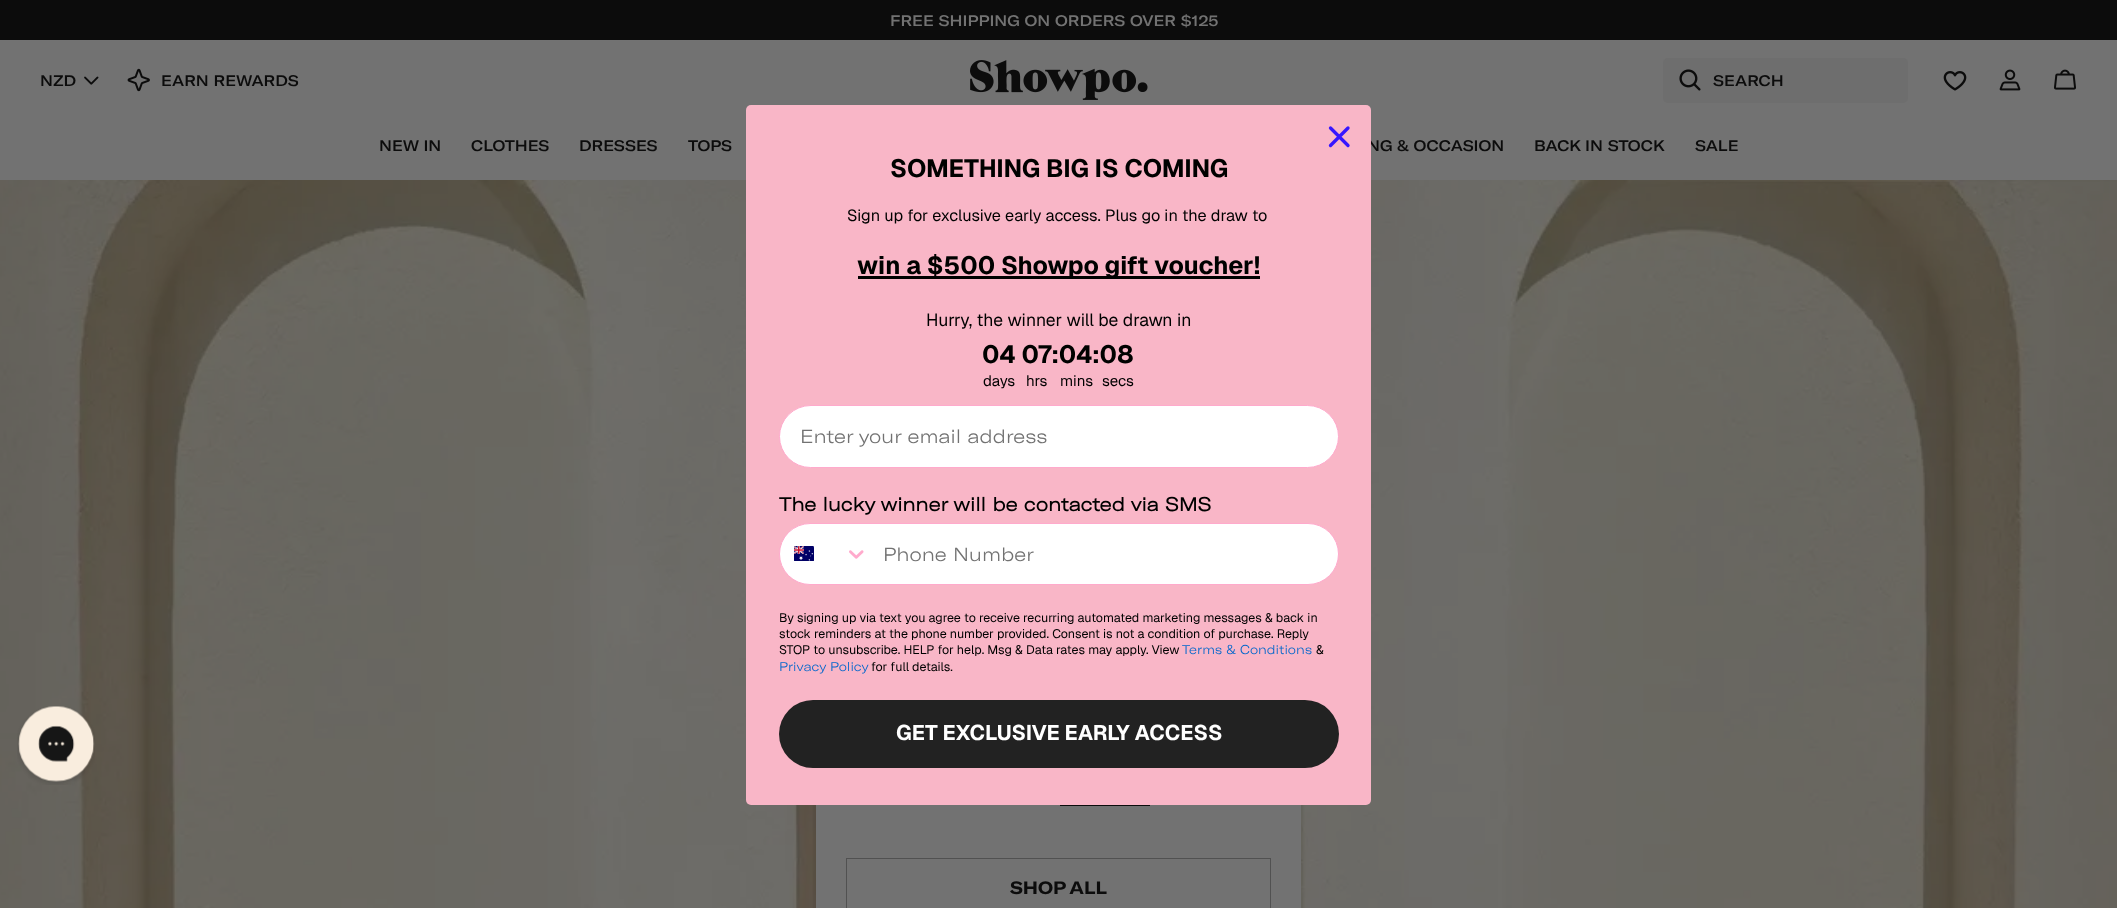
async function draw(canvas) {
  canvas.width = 2117
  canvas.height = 908
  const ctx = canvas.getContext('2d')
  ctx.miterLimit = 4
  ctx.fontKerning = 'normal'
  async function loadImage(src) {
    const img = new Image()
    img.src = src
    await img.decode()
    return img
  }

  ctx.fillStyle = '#727272'
  ctx.fillRect(0, 0, 2117, 908)
  ctx.fillStyle = '#0c0c0c'
  ctx.fillRect(0, 0, 2117, 40)
  ctx.font = '500 15px GT America'
  ctx.fillStyle = '#727272'
  ctx.fillText('FREE SHIPPING ON ORDERS OVER $125', 890, 26)
  ctx.fillStyle = '#0c0c0c'
  ctx.fillText('NZD', 40, 86)
  ctx.drawImage(await loadImage('image0.png'), 84, 76, 15, 9)
  ctx.drawImage(await loadImage('image1.png'), 127, 68, 23, 24)
  ctx.fillText('EARN REWARDS', 161, 86)
  ctx.drawImage(await loadImage('image2.png'), 970, 60, 178, 40)
  ctx.fillStyle = '#6e6e6e'
  ctx.beginPath()
  ctx.roundRect(1663, 58, 245, 45, 5)
  ctx.fill()
  ctx.drawImage(await loadImage('image3.png'), 1679, 69, 22, 22)
  ctx.fillStyle = '#0c0c0c'
  ctx.fillText('SEARCH', 1713, 86)
  ctx.drawImage(await loadImage('image4.png'), 1943, 71, 24, 20)
  ctx.drawImage(await loadImage('image5.png'), 1999, 69, 22, 22)
  ctx.drawImage(await loadImage('image6.png'), 2054, 69, 22, 21)
  ctx.fillText('NEW IN', 379, 151)
  ctx.fillText('CLOTHES', 471, 151)
  ctx.fillText('DRESSES', 579, 151)
  ctx.fillText('TOPS', 688, 151)
  ctx.fillText('NG & OCCASION', 1367, 151)
  ctx.fillText('BACK IN STOCK', 1534, 151)
  ctx.fillText('SALE', 1695, 151)
  ctx.drawImage(await loadImage('image10.png'), 0, 180, 2117, 728)
  ctx.drawImage(await loadImage('image7.png'), 17, 706, 78, 79)
  ctx.fillStyle = '#f9b6c7'
  ctx.beginPath()
  ctx.roundRect(746, 105, 625, 700, 5)
  ctx.fill()
  ctx.beginPath()
  ctx.moveTo(1330.5, 128)
  ctx.lineTo(1348, 145.5)
  ctx.moveTo(1330.5, 145.5)
  ctx.lineTo(1348, 128)
  ctx.closePath()
  ctx.strokeStyle = '#3716ff'
  ctx.lineWidth = 3.3
  ctx.lineCap = 'round'
  ctx.lineJoin = 'round'
  ctx.stroke()
  ctx.font = 'bold 25px Geist'
  ctx.fillStyle = '#000100'
  ctx.fillText('SOMETHING BIG IS COMING', 890, 177)
  ctx.font = '16.25px Geist'
  ctx.fillText('Sign up for exclusive early access. Plus go in the draw to', 847, 221)
  ctx.fillRect(858, 276, 402, 3)
  ctx.font = 'bold 25px Geist'
  ctx.fillText('win a $500 Showpo gift voucher!', 857, 274)
  ctx.font = '17.5px Geist'
  ctx.fillText('Hurry, the winner will be drawn in', 926, 326)
  ctx.font = 'bold 25px Geist'
  ctx.fillText('04 07:04:08', 982, 363)
  ctx.font = '15px Geist'
  ctx.fillText('days', 983, 386)
  ctx.fillText('hrs', 1026, 386)
  ctx.fillText('mins', 1060, 386)
  ctx.fillText('secs', 1102, 386)
  ctx.fillStyle = '#fff'
  ctx.beginPath()
  ctx.roundRect(779.5, 405.5, 559, 62, 31)
  ctx.fill()
  ctx.strokeStyle = '#fac'
  ctx.lineWidth = 1
  ctx.lineJoin = 'miter'
  ctx.stroke()
  ctx.font = '300 18.75px GT America'
  ctx.fillStyle = '#727272'
  ctx.fillText('Enter your email address', 800, 443)
  ctx.font = 'bold 18.75px "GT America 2"'
  ctx.fillStyle = '#000100'
  ctx.fillText('The lucky winner will be contacted via SMS', 779, 511)
  ctx.fillStyle = '#fff'
  ctx.beginPath()
  ctx.roundRect(779.5, 523.5, 559, 61, 30.5)
  ctx.fill()
  ctx.stroke()
  ctx.drawImage(await loadImage('image8.png'), 794, 546, 20, 15)
  ctx.drawImage(await loadImage('image9.png'), 849, 550, 15, 9)
  ctx.font = '300 18.75px GT America'
  ctx.fillStyle = '#727272'
  ctx.fillText('Phone Number', 883, 561)
  ctx.font = '12.5px Geist'
  ctx.fillStyle = '#000100'
  ctx.fillText('By signing up via text you agree to receive recurring automated marketing messages & back in', 779, 622)
  ctx.fillText('stock reminders at the phone number provided. Consent is not a condition of purchase. Reply', 779, 638)
  ctx.fillText('STOP to unsubscribe. HELP for help. Msg & Data rates may apply. View', 779, 654)
  ctx.font = '300 12.5px GT America'
  ctx.fillStyle = '#06c'
  ctx.fillText('Terms & Conditions', 1182, 654)
  ctx.font = '12.5px Geist'
  ctx.fillStyle = '#000100'
  ctx.fillText('&', 1316, 654)
  ctx.font = '300 12.5px GT America'
  ctx.fillStyle = '#06c'
  ctx.fillText('Privacy Policy', 779, 671)
  ctx.font = '12.5px Geist'
  ctx.fillStyle = '#000100'
  ctx.fillText('for full details.', 871, 671)
  ctx.fillStyle = '#222'
  ctx.beginPath()
  ctx.roundRect(779, 700, 560, 68, 34)
  ctx.fill()
  ctx.font = 'bold 21.25px Geist'
  ctx.fillStyle = '#fff'
  ctx.fillText('GET EXCLUSIVE EARLY ACCESS', 896, 740)
  ctx.fillStyle = '#727272'
  ctx.fillRect(816, 805, 485, 103)
  ctx.fillStyle = '#0c0c0c'
  ctx.fillRect(1060, 805, 90, 1)
  ctx.strokeStyle = '#515151'
  ctx.strokeRect(846.5, 858.5, 424, 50)
  ctx.font = 'bold 17.5px GT America'
  ctx.fillText('SHOP ALL', 1010, 894)
}

draw(document.querySelector('canvas'))
